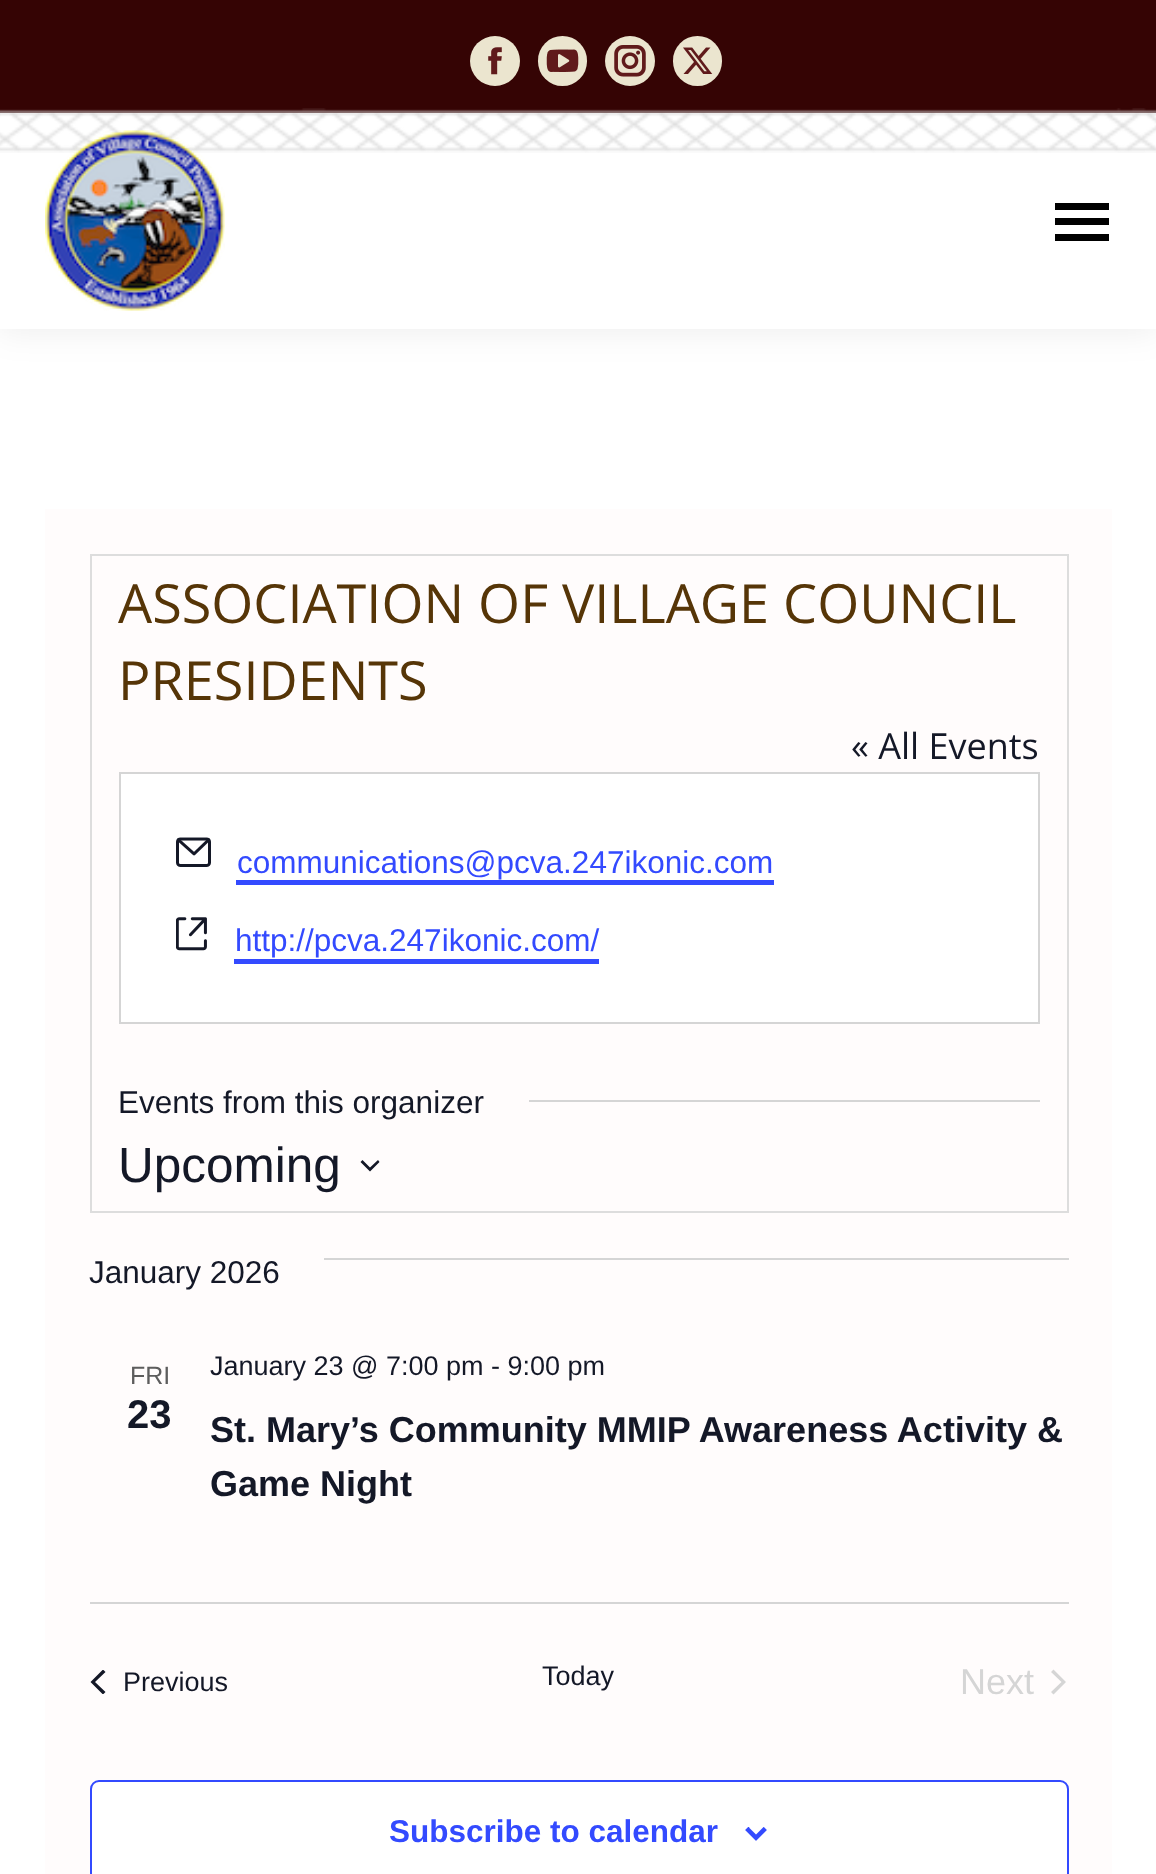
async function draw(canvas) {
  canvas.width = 1156
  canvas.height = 1874
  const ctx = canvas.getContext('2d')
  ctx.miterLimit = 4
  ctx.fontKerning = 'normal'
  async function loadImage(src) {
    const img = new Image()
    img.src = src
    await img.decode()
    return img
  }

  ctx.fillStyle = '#fff'
  ctx.fillRect(0, 0, 1156, 1874)
  ctx.fillStyle = '#00000012'
  ctx.filter = 'blur(17px)'
  ctx.beginPath()
  ctx.rect(-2, -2, 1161, 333)
  ctx.fill()
  ctx.filter = 'none'
  ctx.fillStyle = '#fff'
  ctx.fillRect(0, 113, 1156, 216)
  ctx.fillStyle = '#350404'
  ctx.fillRect(0, 0, 1156, 113)
  ctx.fillStyle = '#ebe5cf'
  ctx.beginPath()
  ctx.arc(495, 61, 25, 0, 2 * Math.PI)
  ctx.fill()
  ctx.drawImage(await loadImage('image0.png'), 488, 47, 14, 28)
  ctx.beginPath()
  ctx.roundRect(538, 36, 49, 50, 24.5)
  ctx.fill()
  ctx.drawImage(await loadImage('image1.png'), 546, 49, 33, 23)
  ctx.beginPath()
  ctx.arc(630, 61, 25, 0, 2 * Math.PI)
  ctx.fill()
  ctx.drawImage(await loadImage('image2.png'), 614, 45, 32, 32)
  ctx.beginPath()
  ctx.roundRect(673, 36, 49, 50, 24.5)
  ctx.fill()
  ctx.drawImage(await loadImage('image3.png'), 683, 47, 30, 27)
  ctx.drawImage(await loadImage('image4.png'), 0, 108, 1156, 45)
  ctx.drawImage(await loadImage('image5.png'), 45, 130, 180, 181)
  ctx.fillStyle = '#000'
  ctx.fillRect(1055, 203, 54, 7)
  ctx.fillRect(1055, 218, 54, 7)
  ctx.fillRect(1055, 234, 54, 7)
  ctx.fillStyle = '#fffcfc'
  ctx.fillRect(45, 509, 1067, 1365)
  ctx.strokeStyle = '#ddd'
  ctx.lineWidth = 2
  ctx.strokeRect(91, 555, 977, 657)
  ctx.font = '54px Open Sans'
  ctx.fillStyle = '#563507'
  ctx.fillText('ASSOCIATION OF VILLAGE COUNCIL', 118, 623)
  ctx.fillText('PRESIDENTS', 118, 700)
  ctx.font = '36px Open Sans'
  ctx.fillStyle = '#141827'
  ctx.fillText('« All Events', 851, 759)
  ctx.fillStyle = '#fff'
  ctx.beginPath()
  ctx.rect(120, 773, 919, 250)
  ctx.fill()
  ctx.strokeStyle = '#d5d5d5'
  ctx.stroke()
  ctx.drawImage(await loadImage('image6.png'), 176, 837, 35, 30)
  ctx.font = '31.5px Liberation Sans'
  ctx.fillStyle = '#334aff'
  ctx.fillText('communications@pcva.247ikonic.com', 237, 873)
  ctx.fillRect(236, 880, 538, 5)
  ctx.drawImage(await loadImage('image7.png'), 176, 917, 31, 34)
  ctx.fillText('http://pcva.247ikonic.com/', 235, 951)
  ctx.fillRect(234, 959, 365, 5)
  ctx.fillStyle = '#141827'
  ctx.fillText('Events from this organizer', 118, 1113)
  ctx.fillStyle = '#d5d5d5'
  ctx.fillRect(529, 1100, 511, 2)
  ctx.font = '49.5px Liberation Sans'
  ctx.fillStyle = '#141827'
  ctx.fillText('Upcoming', 118, 1182)
  ctx.beginPath()
  ctx.moveTo(362.5, 1160)
  ctx.lineTo(370, 1167.5)
  ctx.lineTo(378, 1160)
  ctx.lineTo(379.5, 1162)
  ctx.lineTo(370, 1171.5)
  ctx.lineTo(360.5, 1162)
  ctx.closePath()
  ctx.fill('evenodd')
  ctx.fillStyle = '#d5d5d5'
  ctx.fillRect(324, 1258, 745, 2)
  ctx.font = '31.5px Liberation Sans'
  ctx.fillStyle = '#141827'
  ctx.fillText('January 2026', 89, 1283)
  ctx.font = '25px Liberation Sans'
  ctx.fillStyle = '#5d5d5d'
  ctx.fillText('FRI', 130, 1384)
  ctx.font = 'bold 40px Liberation Sans'
  ctx.fillStyle = '#141827'
  ctx.fillText('23', 127, 1428)
  ctx.font = '27px Liberation Sans'
  ctx.fillText('January 23 @ 7:00 pm - 9:00 pm', 210, 1375)
  ctx.font = 'bold 36px Liberation Sans'
  ctx.fillText('St. Mary’s Community MMIP Awareness Activity &', 210, 1442)
  ctx.fillText('Game Night', 210, 1496)
  ctx.fillStyle = '#d5d5d5'
  ctx.fillRect(90, 1602, 979, 2)
  ctx.save()
  ctx.beginPath()
  ctx.rect(90, 1670, 16, 24)
  ctx.clip()
  ctx.fillStyle = '#141827'
  ctx.beginPath()
  ctx.moveTo(105.5, 1692)
  ctx.lineTo(103, 1694.5)
  ctx.lineTo(90.5, 1682)
  ctx.lineTo(103, 1669.5)
  ctx.lineTo(105.5, 1672)
  ctx.lineTo(95, 1682)
  ctx.closePath()
  ctx.fill()
  ctx.restore()
  ctx.font = '27px Liberation Sans'
  ctx.fillStyle = '#141827'
  ctx.fillText('Previous', 123, 1691)
  ctx.fillText('Today', 542, 1685)
  ctx.font = '36px Liberation Sans'
  ctx.fillStyle = '#d5d5d5'
  ctx.fillText('Next', 960, 1694)
  ctx.beginPath()
  ctx.moveTo(1051, 1672)
  ctx.lineTo(1053.5, 1669.5)
  ctx.lineTo(1066, 1682)
  ctx.lineTo(1053.5, 1694.5)
  ctx.lineTo(1051, 1692)
  ctx.lineTo(1061.5, 1682)
  ctx.closePath()
  ctx.fill()
  ctx.fillStyle = '#fff'
  ctx.beginPath()
  ctx.roundRect(91, 1781, 977, 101, 8)
  ctx.fill()
  ctx.strokeStyle = '#334aff'
  ctx.stroke()
  ctx.font = 'bold 31.5px Liberation Sans'
  ctx.fillStyle = '#334aff'
  ctx.fillText('Subscribe to calendar', 389, 1842)
  ctx.drawImage(await loadImage('image8.png'), 745, 1827, 22, 14)
}

draw(document.querySelector('canvas'))
